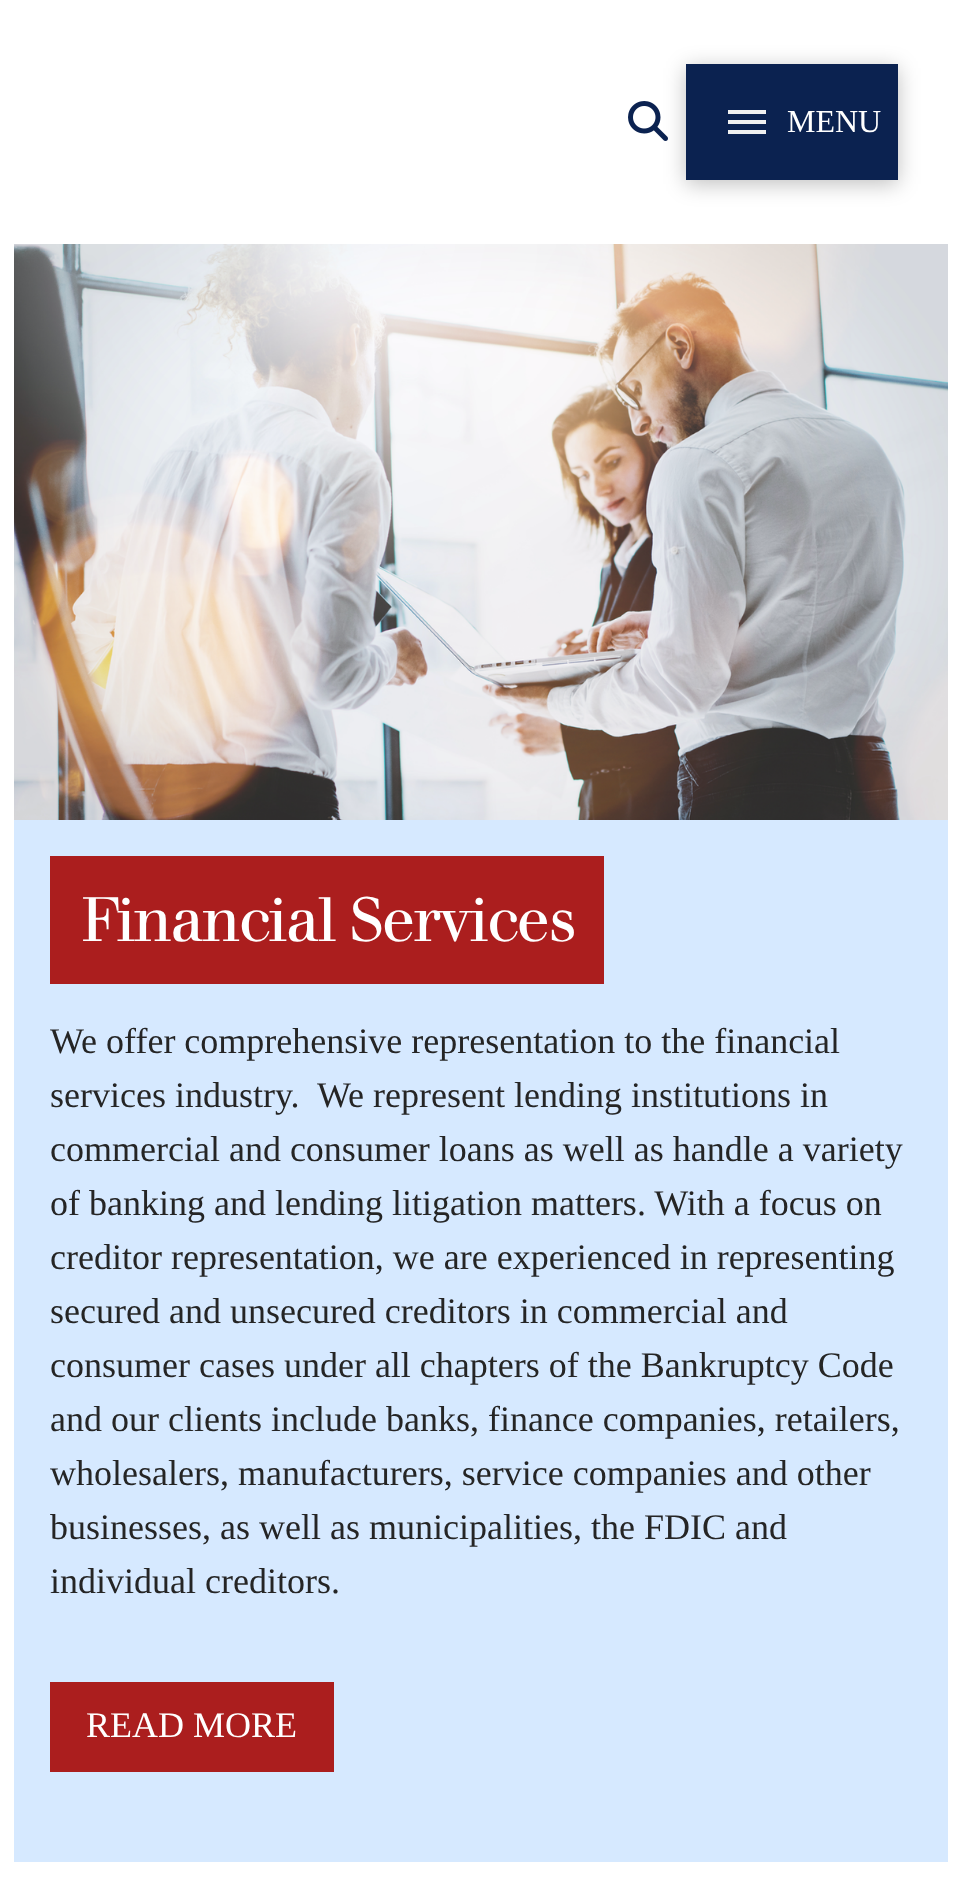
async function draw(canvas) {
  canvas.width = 961
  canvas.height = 1904
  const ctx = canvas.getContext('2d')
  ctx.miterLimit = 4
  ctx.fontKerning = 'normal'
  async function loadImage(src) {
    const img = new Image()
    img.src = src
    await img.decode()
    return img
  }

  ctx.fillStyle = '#fff'
  ctx.fillRect(0, 0, 961, 1904)
  ctx.drawImage(await loadImage('image0.png'), 628, 101, 40, 40)
  ctx.fillStyle = '#00000040'
  ctx.filter = 'blur(10.5px)'
  ctx.beginPath()
  ctx.rect(686, 68, 212, 116)
  ctx.fill()
  ctx.filter = 'none'
  ctx.fillStyle = '#0b2250'
  ctx.fillRect(686, 64, 212, 116)
  ctx.fillStyle = '#f0f0f0'
  ctx.fillRect(728, 110, 38, 4)
  ctx.fillRect(728, 120, 38, 4)
  ctx.fillRect(728, 130, 38, 4)
  ctx.font = '32px Liberation Serif'
  ctx.fillStyle = '#fff'
  ctx.fillText('MENU', 787, 132)
  ctx.drawImage(await loadImage('image1.png'), 14, 244, 934, 576)
  ctx.fillStyle = '#d6e9ff'
  ctx.fillRect(14, 820, 934, 1042)
  ctx.fillStyle = '#ab1e1e'
  ctx.fillRect(50, 856, 554, 128)
  ctx.letterSpacing = '-2.1px'
  ctx.font = '61.25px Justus'
  ctx.fillStyle = '#fff'
  ctx.fillText('Financial Services', 81, 941)
  ctx.letterSpacing = '0px'
  ctx.font = '36px Liberation Serif'
  ctx.fillStyle = '#252525'
  ctx.fillText('We offer comprehensive representation to the financial', 50, 1053)
  ctx.fillText('services industry.  We represent lending institutions in', 50, 1107)
  ctx.fillText('commercial and consumer loans as well as handle a variety', 50, 1161)
  ctx.fillText('of banking and lending litigation matters. With a focus on', 50, 1215)
  ctx.fillText('creditor representation, we are experienced in representing', 50, 1269)
  ctx.fillText('secured and unsecured creditors in commercial and', 50, 1323)
  ctx.fillText('consumer cases under all chapters of the Bankruptcy Code', 50, 1377)
  ctx.fillText('and our clients include banks, finance companies, retailers,', 50, 1431)
  ctx.fillText('wholesalers, manufacturers, service companies and other', 50, 1485)
  ctx.fillText('businesses, as well as municipalities, the FDIC and', 50, 1539)
  ctx.fillText('individual creditors.', 50, 1593)
  ctx.fillStyle = '#ab1e1e'
  ctx.fillRect(50, 1682, 284, 90)
  ctx.fillStyle = '#fff'
  ctx.fillText('READ MORE', 86, 1737)
}

draw(document.querySelector('canvas'))
